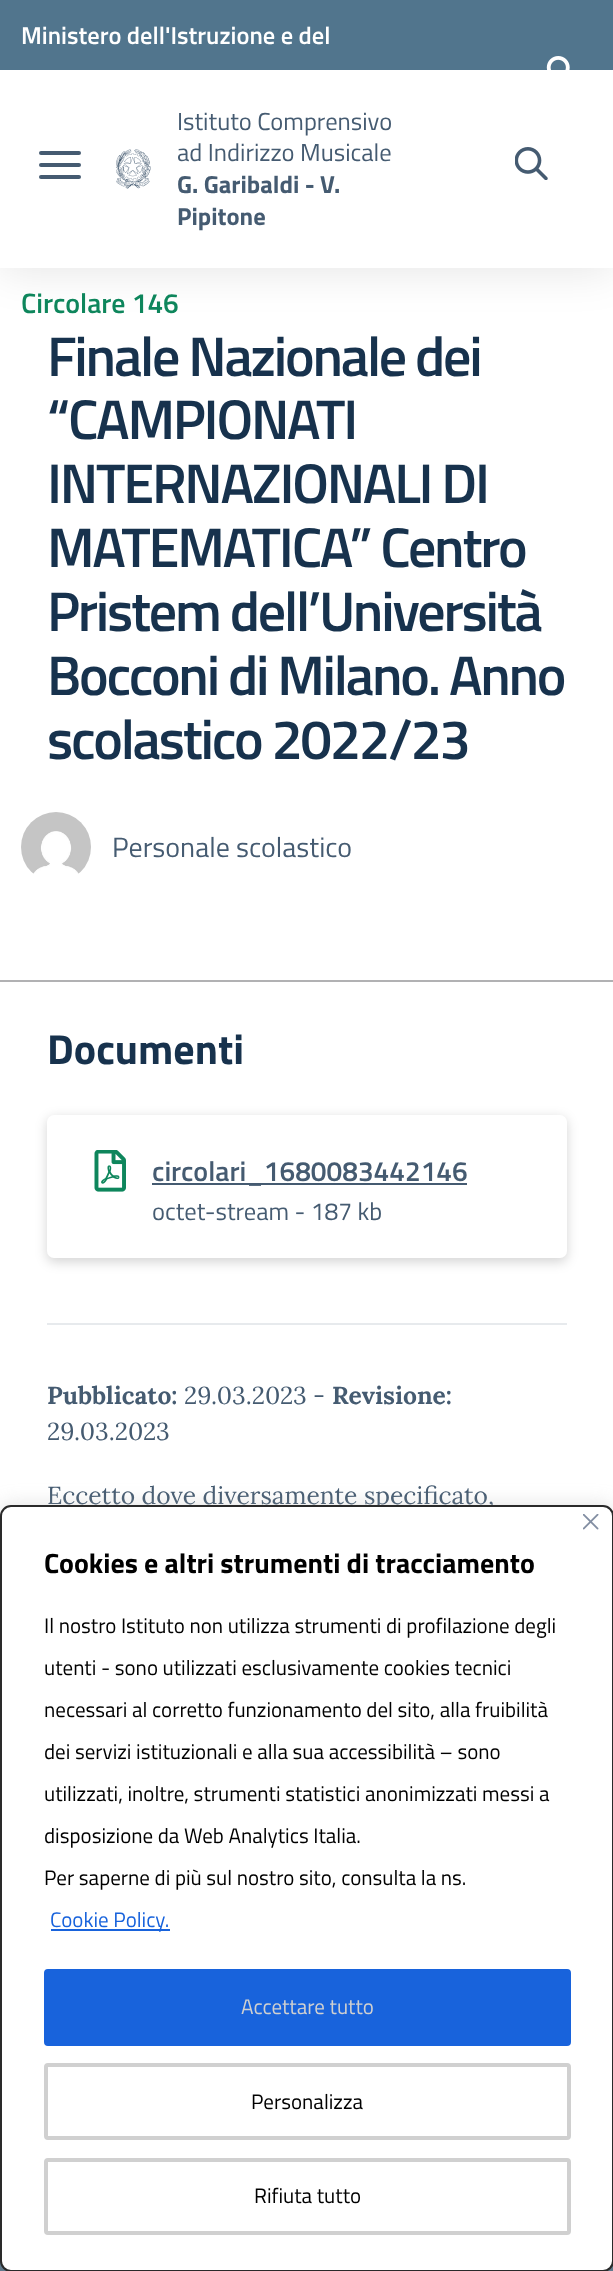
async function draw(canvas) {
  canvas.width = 613
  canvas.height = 2271
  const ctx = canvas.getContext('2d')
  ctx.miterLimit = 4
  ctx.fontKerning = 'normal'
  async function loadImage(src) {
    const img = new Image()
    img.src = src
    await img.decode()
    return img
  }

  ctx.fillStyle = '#fff'
  ctx.fillRect(0, 0, 613, 2271)
  ctx.fillStyle = '#0000001a'
  ctx.filter = 'blur(21.5px)'
  ctx.beginPath()
  ctx.rect(0, 4, 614, 267)
  ctx.fill()
  ctx.filter = 'none'
  ctx.fillStyle = '#fff'
  ctx.fillRect(0, 70, 613, 198)
  ctx.fillStyle = '#51758d'
  ctx.fillRect(0, 0, 613, 70)
  ctx.font = '600 24.5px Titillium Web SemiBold'
  ctx.fillStyle = '#fff'
  ctx.fillText('Ministero dell\'Istruzione e del', 21, 44)
  ctx.drawImage(await loadImage('image0.png'), 546, 56, 24, 14)
  ctx.fillStyle = '#455b71'
  ctx.beginPath()
  ctx.roundRect(39, 163, 42, 4, 2)
  ctx.fill()
  ctx.beginPath()
  ctx.roundRect(39, 151, 42, 4, 2)
  ctx.fill()
  ctx.beginPath()
  ctx.roundRect(39, 175, 42, 4, 2)
  ctx.fill()
  ctx.drawImage(await loadImage('image1.png'), 116, 149, 35, 40)
  ctx.font = '24.6px Titillium Web'
  ctx.fillText('Istituto Comprensivo', 177, 130)
  ctx.fillText('ad Indirizzo Musicale', 177, 161)
  ctx.font = 'bold 24.6px Titillium Web'
  ctx.fillText('G. Garibaldi - V.', 177, 193)
  ctx.fillText('Pipitone', 177, 225)
  ctx.drawImage(await loadImage('image2.png'), 515, 147, 33, 33)
  ctx.font = '600 28px Titillium Web SemiBold'
  ctx.fillStyle = '#0e865c'
  ctx.fillText('Circolare 146', 21, 313)
  ctx.letterSpacing = '-2.25px'
  ctx.font = '600 56px Titillium Web SemiBold'
  ctx.fillStyle = '#17324d'
  ctx.fillText('Finale Nazionale dei', 47, 376)
  ctx.fillText('“CAMPIONATI', 47, 439)
  ctx.fillText('INTERNAZIONALI DI', 47, 503)
  ctx.fillText('MATEMATICA” Centro', 47, 567)
  ctx.fillText('Pristem dell’Università', 47, 631)
  ctx.fillText('Bocconi di Milano. Anno', 47, 695)
  ctx.fillText('scolastico 2022/23', 47, 759)
  ctx.drawImage(await loadImage('image3.png'), 21, 812, 70, 62)
  ctx.letterSpacing = '0px'
  ctx.font = '28px Titillium Web'
  ctx.fillStyle = '#455b71'
  ctx.fillText('Personale scolastico', 112, 857)
  ctx.fillStyle = '#b1b1b3'
  ctx.fillRect(0, 980, 613, 2)
  ctx.font = 'bold 42px Titillium Web'
  ctx.fillStyle = '#17324d'
  ctx.fillText('Documenti', 47, 1064)
  ctx.fillStyle = '#0000002b'
  ctx.filter = 'blur(6px)'
  ctx.beginPath()
  ctx.roundRect(47, 1118, 520, 144, 7)
  ctx.fill()
  ctx.filter = 'none'
  ctx.fillStyle = '#fff'
  ctx.beginPath()
  ctx.roundRect(47, 1115, 520, 143, 7)
  ctx.fill()
  ctx.drawImage(await loadImage('image4.png'), 94, 1150, 32, 42)
  ctx.fillStyle = '#455b71'
  ctx.fillRect(152, 1183, 315, 2)
  ctx.font = '600 28px Titillium Web SemiBold'
  ctx.fillText('circolari_1680083442146', 152, 1181)
  ctx.font = '24.6px Titillium Web'
  ctx.fillText('octet-stream - 187 kb', 152, 1220)
  ctx.fillStyle = '#e7eaed'
  ctx.fillRect(47, 1323, 520, 2)
  ctx.font = 'bold 24.6px Lora'
  ctx.fillStyle = '#455b71'
  ctx.fillText('Pubblicato:', 47, 1404)
  ctx.font = '24.6px Lora'
  ctx.fillText('29.03.2023 -', 184, 1404)
  ctx.font = 'bold 24.6px Lora'
  ctx.fillText('Revisione:', 332, 1404)
  ctx.font = '24.6px Lora'
  ctx.fillText('29.03.2023', 47, 1440)
  ctx.fillText('Eccetto dove diversamente specificato,', 47, 1504)
  ctx.fillStyle = '#5a768a'
  ctx.fillRect(0, 2261, 613, 10)
  ctx.fillStyle = '#acabab4d'
  ctx.filter = 'blur(9px)'
  ctx.beginPath()
  ctx.roundRect(0, 1503, 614, 767, 11)
  ctx.fill()
  ctx.filter = 'none'
  ctx.fillStyle = '#fff'
  ctx.beginPath()
  ctx.roundRect(1, 1506, 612, 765, 10)
  ctx.fill()
  ctx.strokeStyle = '#2a2a2a'
  ctx.lineWidth = 2
  ctx.stroke()
  ctx.drawImage(await loadImage('image5.png'), 583, 1514, 16, 16)
  ctx.font = 'bold 28px Titillium Web'
  ctx.fillStyle = '#000'
  ctx.fillText('Cookies e altri strumenti di tracciamento', 44, 1573)
  ctx.font = '21px Titillium Web'
  ctx.fillText('Il nostro Istituto non utilizza strumenti di profilazione degli', 44, 1633)
  ctx.fillText('utenti - sono utilizzati esclusivamente cookies tecnici', 44, 1675)
  ctx.fillText('necessari al corretto funzionamento del sito, alla fruibilità', 44, 1717)
  ctx.fillText('dei servizi istituzionali e alla sua accessibilità – sono', 44, 1759)
  ctx.fillText('utilizzati, inoltre, strumenti statistici anonimizzati messi a', 44, 1801)
  ctx.fillText('disposizione da Web Analytics Italia.', 44, 1843)
  ctx.fillText('Per saperne di più sul nostro sito, consulta la ns.', 44, 1885)
  ctx.fillStyle = '#1863dc'
  ctx.fillRect(51, 1929, 119, 2)
  ctx.fillText('Cookie Policy.', 50, 1927)
  ctx.beginPath()
  ctx.roundRect(46, 1971, 523, 73, 2)
  ctx.fill()
  ctx.strokeStyle = '#1863dc'
  ctx.lineWidth = 4
  ctx.stroke()
  ctx.fillStyle = '#d0d0d0'
  ctx.fillText('Accettare tutto', 241, 2014)
  ctx.beginPath()
  ctx.roundRect(46, 2065, 523, 73, 2)
  ctx.strokeStyle = '#d0d0d0'
  ctx.stroke()
  ctx.fillStyle = '#000'
  ctx.fillText('Personalizza', 251, 2109)
  ctx.beginPath()
  ctx.roundRect(46, 2160, 523, 73, 2)
  ctx.stroke()
  ctx.fillText('Rifiuta tutto', 254, 2203)
}

draw(document.querySelector('canvas'))
